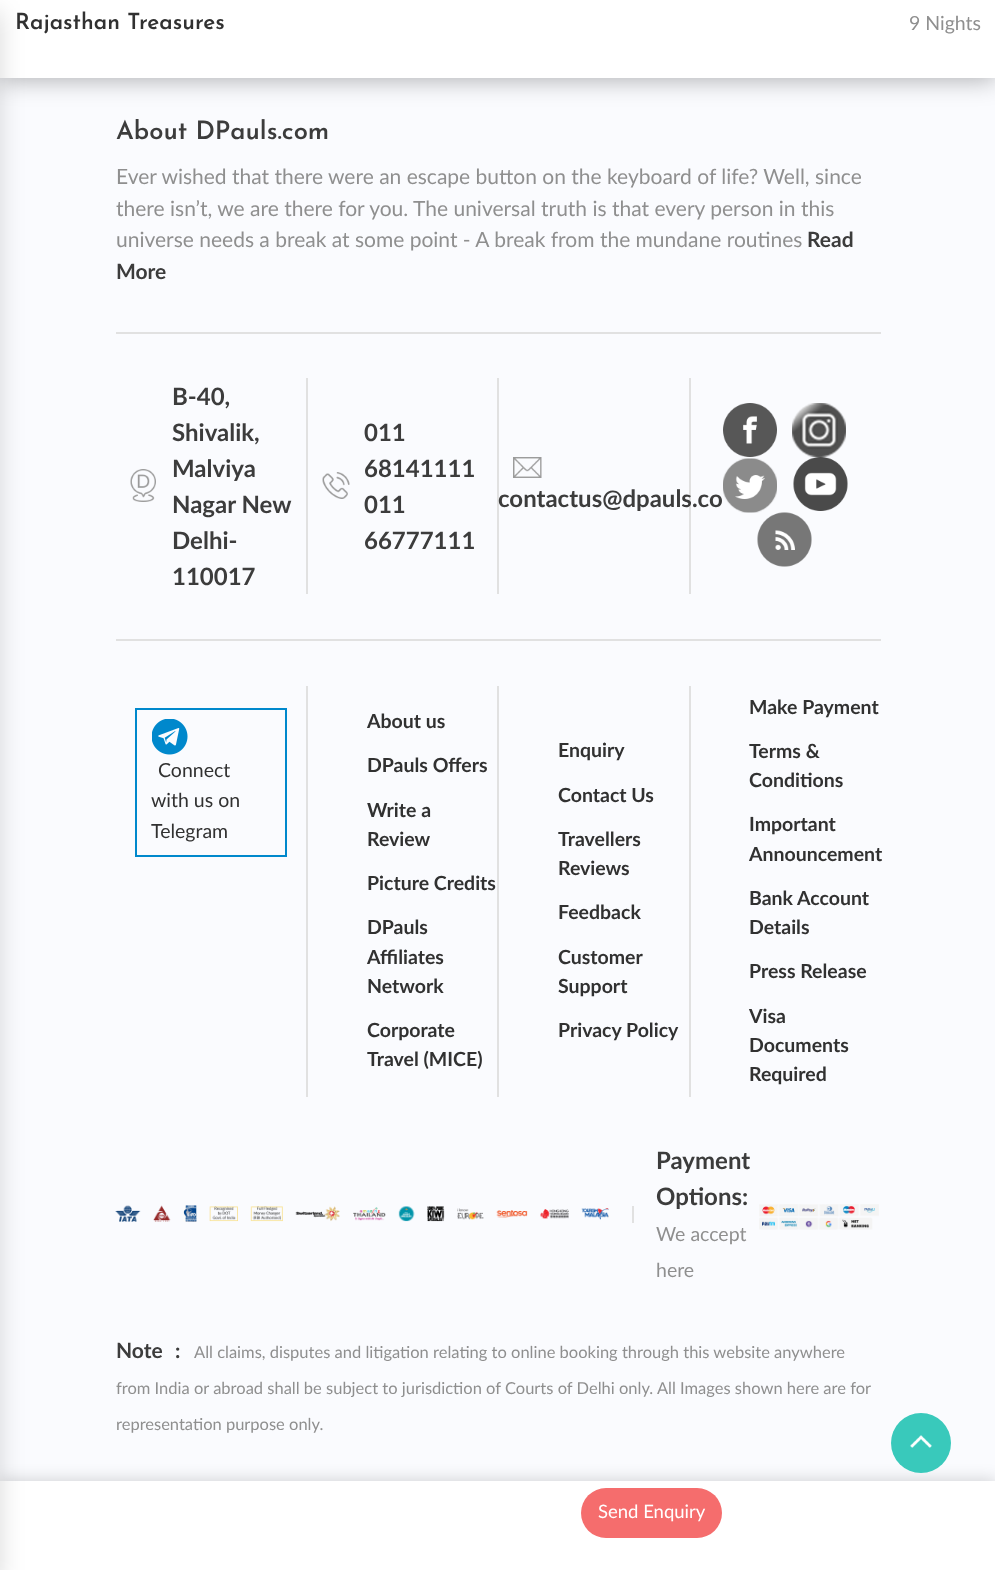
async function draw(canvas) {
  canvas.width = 995
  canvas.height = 1570
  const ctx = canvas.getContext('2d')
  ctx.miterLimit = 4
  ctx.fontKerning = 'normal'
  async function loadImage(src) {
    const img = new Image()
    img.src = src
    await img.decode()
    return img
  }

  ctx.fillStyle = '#fafbfe'
  ctx.fillRect(0, 0, 995, 1570)
  ctx.fillStyle = '#0000004d'
  ctx.filter = 'blur(12px)'
  ctx.beginPath()
  ctx.rect(0, 2, 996, 78)
  ctx.fill()
  ctx.filter = 'none'
  ctx.fillStyle = '#fff'
  ctx.fillRect(0, 0, 995, 78)
  ctx.fillStyle = '#00000026'
  ctx.filter = 'blur(7.5px)'
  ctx.beginPath()
  ctx.rect(0, 1479, 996, 90)
  ctx.fill()
  ctx.filter = 'none'
  ctx.fillStyle = '#fff'
  ctx.fillRect(0, 1481, 995, 89)
  ctx.fillStyle = '#00000026'
  ctx.filter = 'blur(12px)'
  ctx.beginPath()
  ctx.rect(-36, 12, 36, 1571)
  ctx.fill()
  ctx.filter = 'none'
  ctx.font = '600 22.5px Josefin Sans'
  ctx.fillStyle = '#313131'
  ctx.fillText('Rajasthan Treasures', 15, 29)
  ctx.font = '19.5px Lato'
  ctx.fillStyle = '#8f8f8f'
  ctx.fillText('9 Nights', 909, 30)
  ctx.fillStyle = '#f56d6d'
  ctx.beginPath()
  ctx.roundRect(581, 1488, 141, 50, 25)
  ctx.fill()
  ctx.font = '18.5px Lato'
  ctx.fillStyle = '#fff'
  ctx.fillText('Send Enquiry', 598, 1518)
  ctx.font = '600 25.5px Josefin Sans'
  ctx.fillStyle = '#3c3c3c'
  ctx.fillText('About DPauls.com', 116, 139)
  ctx.font = '21px Lato'
  ctx.fillStyle = '#8f8f8f'
  ctx.fillText('Ever wished that there were an escape button on the keyboard of life? Well, since', 116, 184)
  ctx.fillText('there isn’t, we are there for you. The universal truth is that every person in this', 116, 216)
  ctx.fillText('universe needs a break at some point - A break from the mundane routines', 116, 247)
  ctx.font = 'bold 21px Lato'
  ctx.fillStyle = '#3c3c3c'
  ctx.fillText('Read', 807, 247)
  ctx.fillText('More', 116, 279)
  ctx.fillStyle = '#e1e1e1'
  ctx.fillRect(116, 332, 765, 2)
  ctx.fillRect(306, 378, 2, 216)
  ctx.drawImage(await loadImage('image0.png'), 130, 469, 26, 33)
  ctx.font = 'bold 24px Lato'
  ctx.fillStyle = '#3c3c3c'
  ctx.fillText('B-40,', 172, 405)
  ctx.fillText('Shivalik,', 172, 441)
  ctx.fillText('Malviya', 172, 477)
  ctx.fillText('Nagar New', 172, 513)
  ctx.fillText('Delhi-', 172, 549)
  ctx.fillText('110017', 172, 585)
  ctx.fillStyle = '#e1e1e1'
  ctx.fillRect(497, 378, 2, 216)
  ctx.drawImage(await loadImage('image1.png'), 322, 472, 28, 27)
  ctx.fillStyle = '#3c3c3c'
  ctx.fillText('011', 364, 441)
  ctx.fillText('68141111', 364, 477)
  ctx.fillText('011', 364, 513)
  ctx.fillText('66777111', 364, 549)
  ctx.fillStyle = '#e1e1e1'
  ctx.fillRect(689, 378, 2, 216)
  ctx.drawImage(await loadImage('image2.png'), 513, 457, 29, 21)
  ctx.fillStyle = '#3c3c3c'
  ctx.fillText('contactus@dpauls.co', 498, 507)
  ctx.drawImage(await loadImage('image3.png'), 723, 403, 54, 54)
  ctx.drawImage(await loadImage('image4.png'), 792, 403, 54, 54)
  ctx.drawImage(await loadImage('image5.png'), 723, 458, 54, 55)
  ctx.drawImage(await loadImage('image6.png'), 793, 457, 55, 54)
  ctx.drawImage(await loadImage('image7.png'), 757, 512, 55, 55)
  ctx.fillStyle = '#e1e1e1'
  ctx.fillRect(116, 639, 765, 2)
  ctx.fillRect(306, 686, 2, 411)
  ctx.strokeStyle = '#08c'
  ctx.lineWidth = 2
  ctx.strokeRect(136, 709, 150, 147)
  ctx.drawImage(await loadImage('image8.png'), 152, 719, 36, 36)
  ctx.font = '19.5px Lato'
  ctx.fillStyle = '#313131'
  ctx.fillText('Connect', 158, 777)
  ctx.fillText('with us on', 151, 807)
  ctx.fillText('Telegram', 151, 838)
  ctx.fillStyle = '#e1e1e1'
  ctx.fillRect(497, 686, 2, 411)
  ctx.font = 'bold 19.5px Lato'
  ctx.fillStyle = '#313131'
  ctx.fillText('About us', 367, 728)
  ctx.fillText('DPauls Offers', 367, 772)
  ctx.fillText('Write a', 367, 817)
  ctx.fillText('Review', 367, 846)
  ctx.fillText('Picture Credits', 367, 890)
  ctx.fillText('DPauls', 367, 934)
  ctx.fillText('Affiliates', 367, 964)
  ctx.fillText('Network', 367, 993)
  ctx.fillText('Corporate', 367, 1037)
  ctx.fillText('Travel (MICE)', 367, 1066)
  ctx.fillStyle = '#e1e1e1'
  ctx.fillRect(689, 686, 2, 411)
  ctx.fillStyle = '#313131'
  ctx.fillText('Enquiry', 558, 757)
  ctx.fillText('Contact Us', 558, 802)
  ctx.fillText('Travellers', 558, 846)
  ctx.fillText('Reviews', 558, 875)
  ctx.fillText('Feedback', 558, 919)
  ctx.fillText('Customer', 558, 964)
  ctx.fillText('Support', 558, 993)
  ctx.fillText('Privacy Policy', 558, 1037)
  ctx.fillText('Make Payment', 749, 714)
  ctx.fillText('Terms &', 749, 758)
  ctx.fillText('Conditions', 749, 787)
  ctx.fillText('Important', 749, 831)
  ctx.fillText('Announcement', 749, 861)
  ctx.fillText('Bank Account', 749, 905)
  ctx.fillText('Details', 749, 934)
  ctx.fillText('Press Release', 749, 978)
  ctx.fillText('Visa', 749, 1023)
  ctx.fillText('Documents', 749, 1052)
  ctx.fillText('Required', 749, 1081)
  ctx.fillStyle = '#e1e1e1'
  ctx.fillRect(632, 1206, 2, 17)
  ctx.drawImage(await loadImage('image9.png'), 115, 1205, 494, 17)
  ctx.font = 'bold 24px Lato'
  ctx.fillStyle = '#3c3c3c'
  ctx.fillText('Payment', 656, 1169)
  ctx.fillText('Options:', 656, 1205)
  ctx.font = '19.5px Lato'
  ctx.fillStyle = '#8f8f8f'
  ctx.fillText('We accept', 656, 1241)
  ctx.fillText('here', 656, 1277)
  ctx.drawImage(await loadImage('image10.png'), 759, 1204, 120, 26)
  ctx.font = 'bold 21px Lato'
  ctx.fillStyle = '#3c3c3c'
  ctx.fillText('Note', 116, 1358)
  ctx.fillText(':', 175, 1358)
  ctx.font = '16.5px Lato'
  ctx.fillStyle = '#8f8f8f'
  ctx.fillText('All claims, disputes and litigation relating to online booking through this website anywhere', 194, 1358)
  ctx.fillText('from India or abroad shall be subject to jurisdiction of Courts of Delhi only. All Images shown here are for', 116, 1394)
  ctx.fillText('representation purpose only.', 116, 1430)
  ctx.fillStyle = '#39c9bb'
  ctx.beginPath()
  ctx.arc(921, 1443, 30, 0, 2 * Math.PI)
  ctx.fill()
  ctx.drawImage(await loadImage('image11.png'), 910, 1435, 22, 13)
}

draw(document.querySelector('canvas'))
